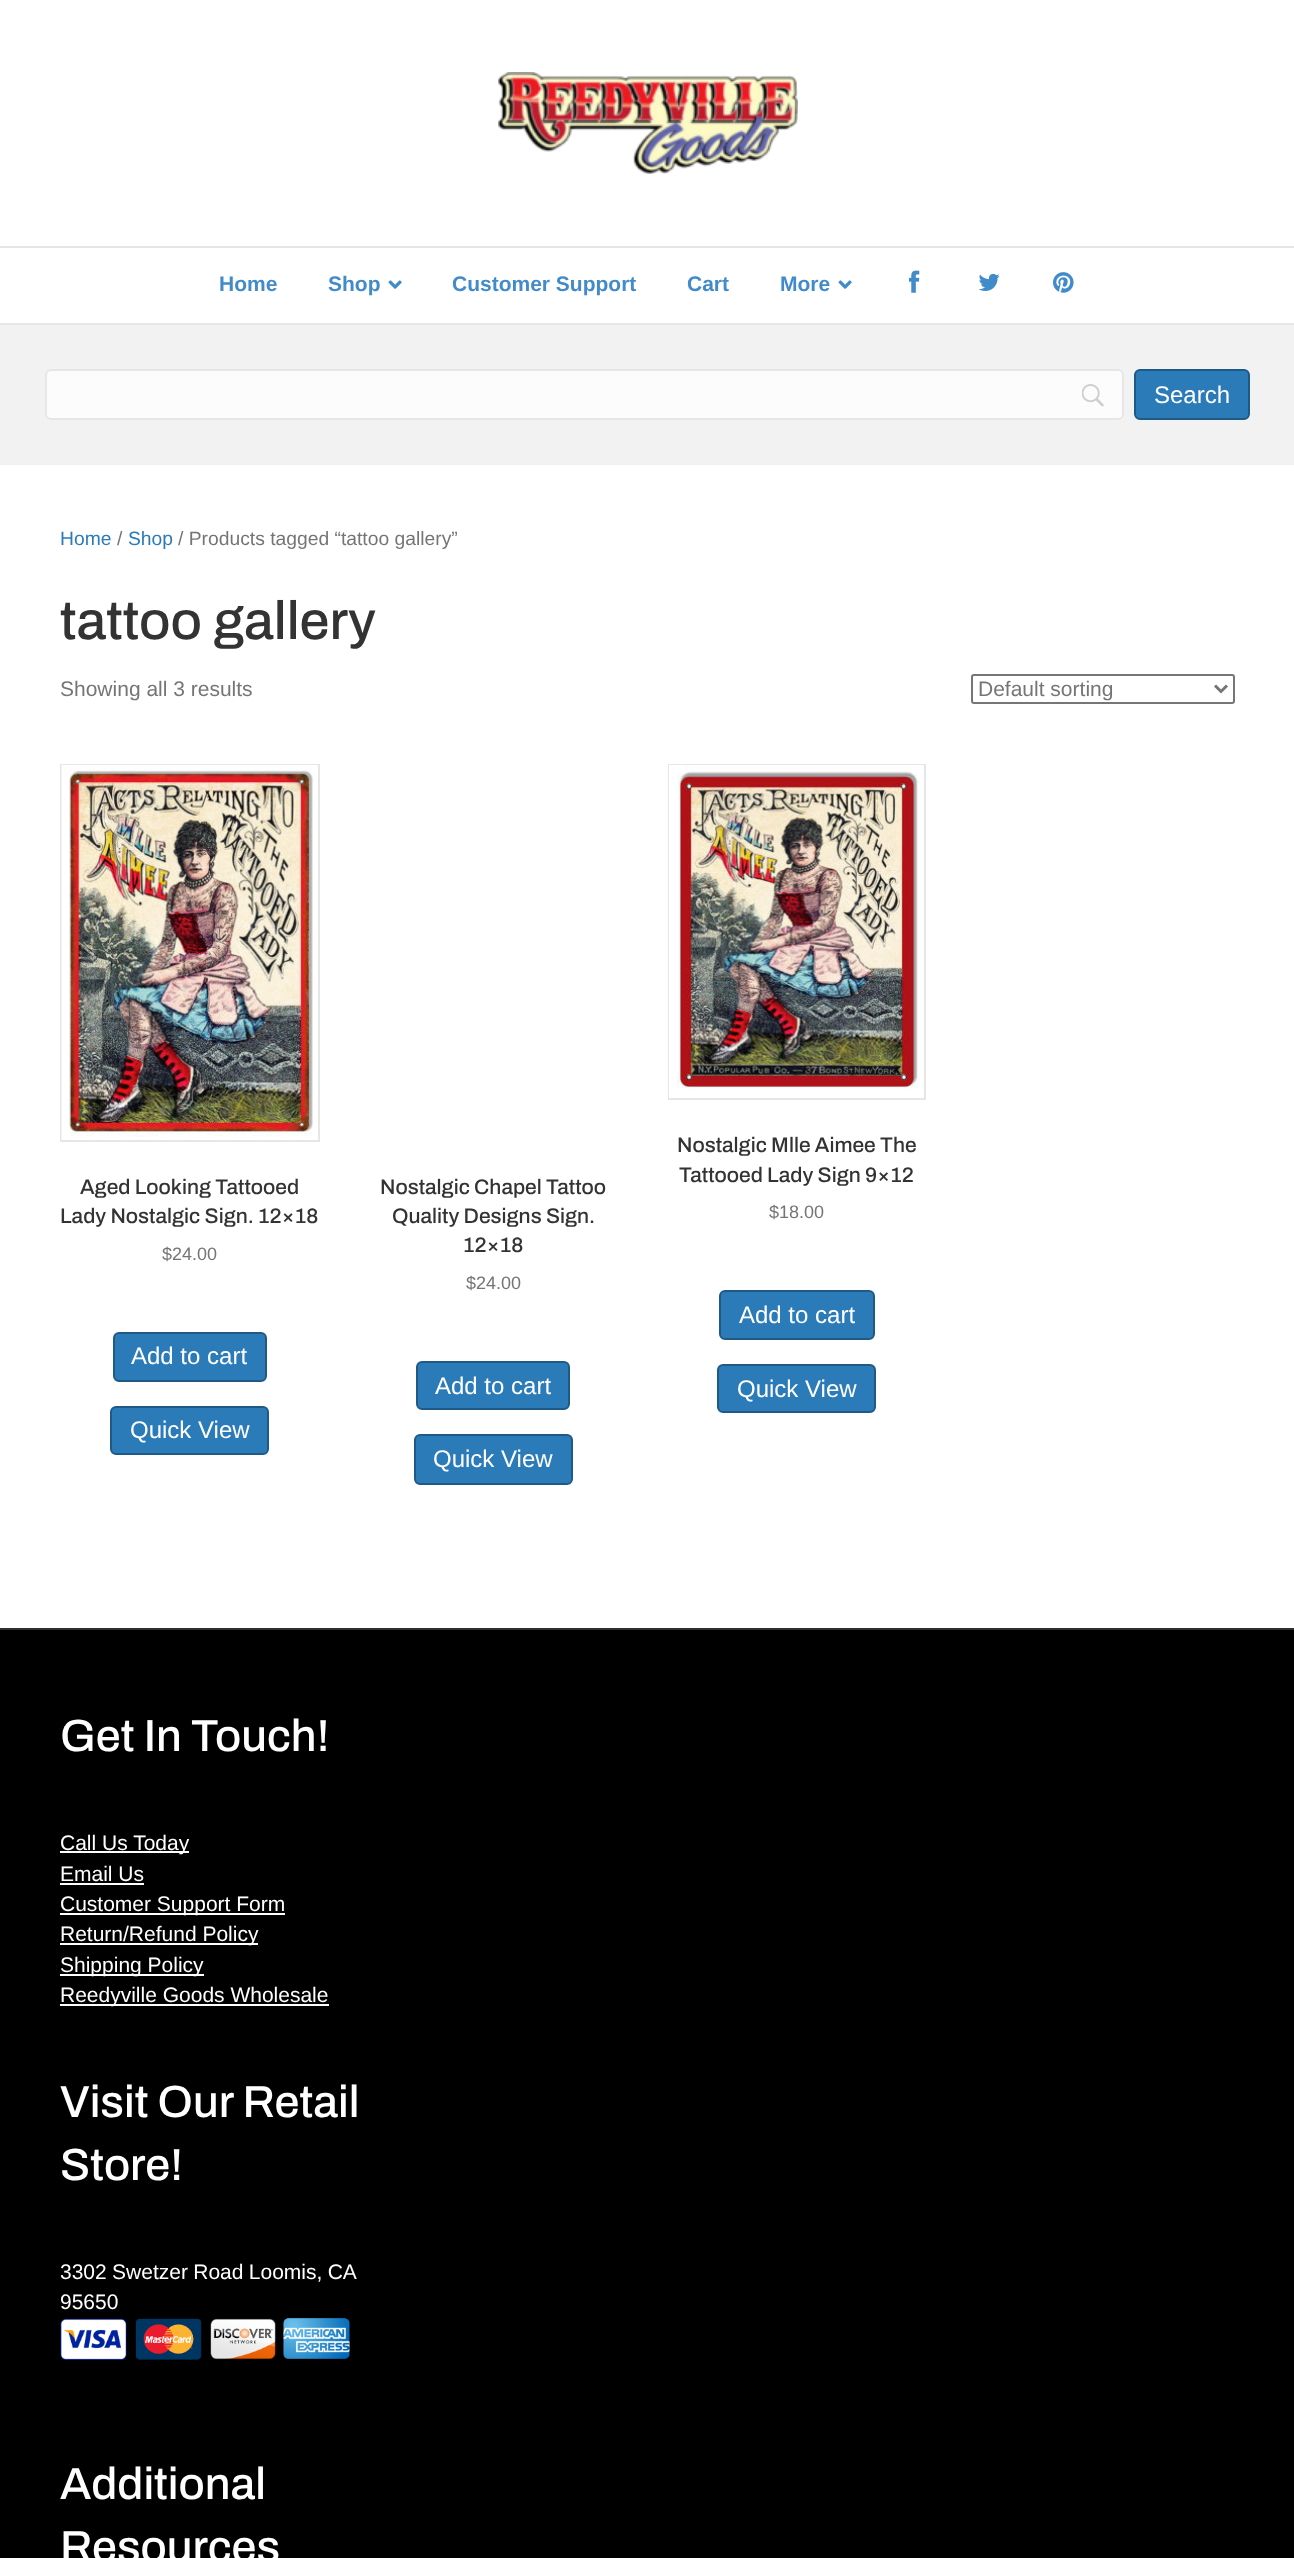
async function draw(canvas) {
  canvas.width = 1294
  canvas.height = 2558
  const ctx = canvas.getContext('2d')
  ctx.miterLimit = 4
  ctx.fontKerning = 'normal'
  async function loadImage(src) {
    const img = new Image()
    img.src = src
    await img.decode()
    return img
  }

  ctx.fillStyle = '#f2f2f2'
  ctx.fillRect(0, 0, 1294, 2558)
  ctx.fillStyle = '#fff'
  ctx.fillRect(0, 0, 1294, 323)
  ctx.drawImage(await loadImage('image0.png'), 498, 72, 300, 102)
  ctx.fillStyle = '#e6e6e6'
  ctx.fillRect(0, 246, 1294, 2)
  ctx.fillRect(0, 323, 1294, 2)
  ctx.font = 'bold 21px Liberation Sans'
  ctx.fillStyle = '#428bca'
  ctx.fillText('Home', 219, 291)
  ctx.fillText('Shop', 328, 291)
  ctx.drawImage(await loadImage('image1.png'), 388, 280, 14, 9)
  ctx.fillText('Customer Support', 452, 291)
  ctx.fillText('Cart', 687, 291)
  ctx.fillText('More', 780, 291)
  ctx.drawImage(await loadImage('image1.png'), 838, 280, 14, 9)
  ctx.drawImage(await loadImage('image2.png'), 909, 270, 11, 23)
  ctx.drawImage(await loadImage('image3.png'), 978, 273, 22, 18)
  ctx.drawImage(await loadImage('image4.png'), 1053, 272, 21, 21)
  ctx.fillStyle = '#fcfcfc'
  ctx.beginPath()
  ctx.roundRect(45, 369, 1079, 51, 6)
  ctx.fill()
  ctx.drawImage(await loadImage('image5.png'), 1082, 384, 22, 23)
  ctx.beginPath()
  ctx.roundRect(46, 370, 1077, 49, 5)
  ctx.strokeStyle = '#e6e6e6'
  ctx.lineWidth = 2
  ctx.stroke()
  ctx.fillStyle = '#2b7bb9'
  ctx.beginPath()
  ctx.roundRect(1135, 370, 114, 49, 5)
  ctx.fill()
  ctx.strokeStyle = '#1f5a87'
  ctx.stroke()
  ctx.font = '24px Liberation Sans'
  ctx.fillStyle = '#fff'
  ctx.fillText('Search', 1154, 403)
  ctx.fillRect(0, 465, 1294, 1163)
  ctx.font = '19.3px Liberation Sans'
  ctx.fillStyle = '#2b7bb9'
  ctx.fillText('Home', 60, 545)
  ctx.fillStyle = '#757575'
  ctx.fillText('/', 117, 545)
  ctx.fillStyle = '#2b7bb9'
  ctx.fillText('Shop', 128, 545)
  ctx.fillStyle = '#757575'
  ctx.fillText('/ Products tagged “tattoo gallery”', 178, 545)
  ctx.font = '600 54px Archivo'
  ctx.fillStyle = '#333'
  ctx.fillText('tattoo gallery', 60, 639)
  ctx.font = '21px Liberation Sans'
  ctx.fillStyle = '#757575'
  ctx.fillText('Showing all 3 results', 60, 696)
  ctx.beginPath()
  ctx.roundRect(972, 675, 262, 28, 2)
  ctx.strokeStyle = '#767676'
  ctx.stroke()
  ctx.beginPath()
  ctx.moveTo(1215, 685.5)
  ctx.lineTo(1221, 691.5)
  ctx.lineTo(1227, 685.5)
  ctx.strokeStyle = '#757575'
  ctx.lineWidth = 3
  ctx.stroke()
  ctx.fillText('Default sorting', 978, 696)
  ctx.strokeStyle = '#e6e6e6'
  ctx.lineWidth = 2
  ctx.strokeRect(61, 765, 258, 376)
  ctx.drawImage(await loadImage('image6.png'), 61, 765, 257, 375)
  ctx.font = '600 21px Archivo'
  ctx.fillStyle = '#333'
  ctx.fillText('Aged Looking Tattooed', 80, 1194)
  ctx.fillText('Lady Nostalgic Sign. 12×18', 60, 1223)
  ctx.font = '18px Liberation Sans'
  ctx.fillStyle = '#757575'
  ctx.fillText('$24.00', 162, 1260)
  ctx.fillStyle = '#2b7bb9'
  ctx.beginPath()
  ctx.roundRect(114, 1333, 152, 48, 5)
  ctx.fill()
  ctx.strokeStyle = '#1f5a87'
  ctx.stroke()
  ctx.font = '24px Liberation Sans'
  ctx.fillStyle = '#fff'
  ctx.fillText('Add to cart', 131, 1364)
  ctx.fillStyle = '#2b7bb9'
  ctx.beginPath()
  ctx.roundRect(111, 1407, 157, 47, 5)
  ctx.fill()
  ctx.stroke()
  ctx.fillStyle = '#fff'
  ctx.fillText('Quick View', 130, 1438)
  ctx.font = '600 21px Archivo'
  ctx.fillStyle = '#333'
  ctx.fillText('Nostalgic Chapel Tattoo', 380, 1194)
  ctx.fillText('Quality Designs Sign.', 392, 1223)
  ctx.fillText('12×18', 463, 1252)
  ctx.font = '18px Liberation Sans'
  ctx.fillStyle = '#757575'
  ctx.fillText('$24.00', 466, 1289)
  ctx.fillStyle = '#2b7bb9'
  ctx.beginPath()
  ctx.roundRect(417, 1362, 152, 47, 5)
  ctx.fill()
  ctx.stroke()
  ctx.font = '24px Liberation Sans'
  ctx.fillStyle = '#fff'
  ctx.fillText('Add to cart', 435, 1394)
  ctx.fillStyle = '#2b7bb9'
  ctx.beginPath()
  ctx.roundRect(415, 1435, 157, 49, 5)
  ctx.fill()
  ctx.stroke()
  ctx.fillStyle = '#fff'
  ctx.fillText('Quick View', 433, 1467)
  ctx.strokeStyle = '#e6e6e6'
  ctx.strokeRect(669, 765, 256, 334)
  ctx.drawImage(await loadImage('image7.png'), 669, 765, 255, 333)
  ctx.font = '600 21px Archivo'
  ctx.fillStyle = '#333'
  ctx.fillText('Nostalgic Mlle Aimee The', 677, 1152)
  ctx.fillText('Tattooed Lady Sign 9×12', 679, 1182)
  ctx.font = '18px Liberation Sans'
  ctx.fillStyle = '#757575'
  ctx.fillText('$18.00', 769, 1218)
  ctx.fillStyle = '#2b7bb9'
  ctx.beginPath()
  ctx.roundRect(720, 1291, 154, 48, 5)
  ctx.fill()
  ctx.strokeStyle = '#1f5a87'
  ctx.stroke()
  ctx.font = '24px Liberation Sans'
  ctx.fillStyle = '#fff'
  ctx.fillText('Add to cart', 739, 1323)
  ctx.fillStyle = '#2b7bb9'
  ctx.beginPath()
  ctx.roundRect(718, 1365, 157, 47, 5)
  ctx.fill()
  ctx.stroke()
  ctx.fillStyle = '#fff'
  ctx.fillText('Quick View', 737, 1397)
  ctx.fillStyle = '#000'
  ctx.fillRect(0, 1630, 1294, 928)
  ctx.fillStyle = '#303030'
  ctx.fillRect(0, 1628, 1294, 2)
  ctx.font = '600 45px Archivo'
  ctx.fillStyle = '#fff'
  ctx.fillText('Get In Touch!', 60, 1751)
  ctx.fillRect(60, 1851, 129, 2)
  ctx.font = '21px Liberation Sans'
  ctx.fillText('Call Us Today', 60, 1850)
  ctx.fillText('Email Us', 60, 1881)
  ctx.fillRect(60, 1883, 84, 2)
  ctx.fillRect(60, 1913, 225, 2)
  ctx.fillText('Customer Support Form', 60, 1911)
  ctx.fillRect(60, 1943, 198, 2)
  ctx.fillText('Return/Refund Policy', 60, 1941)
  ctx.fillRect(60, 1974, 144, 2)
  ctx.fillText('Shipping Policy', 60, 1972)
  ctx.fillRect(60, 2004, 269, 2)
  ctx.fillText('Reedyville Goods Wholesale', 60, 2002)
  ctx.font = '600 45px Archivo'
  ctx.fillText('Visit Our Retail', 60, 2117)
  ctx.fillText('Store!', 60, 2180)
  ctx.wordSpacing = '-0.5px'
  ctx.font = '21px Liberation Sans'
  ctx.fillText('3302 Swetzer Road Loomis, CA', 60, 2279)
  ctx.wordSpacing = '0px'
  ctx.fillText('95650', 60, 2309)
  ctx.drawImage(await loadImage('image8.png'), 60, 2317, 290, 44)
  ctx.font = '600 45px Archivo'
  ctx.fillText('Additional', 60, 2499)
  ctx.fillText('Resources', 60, 2562)
}

draw(document.querySelector('canvas'))
